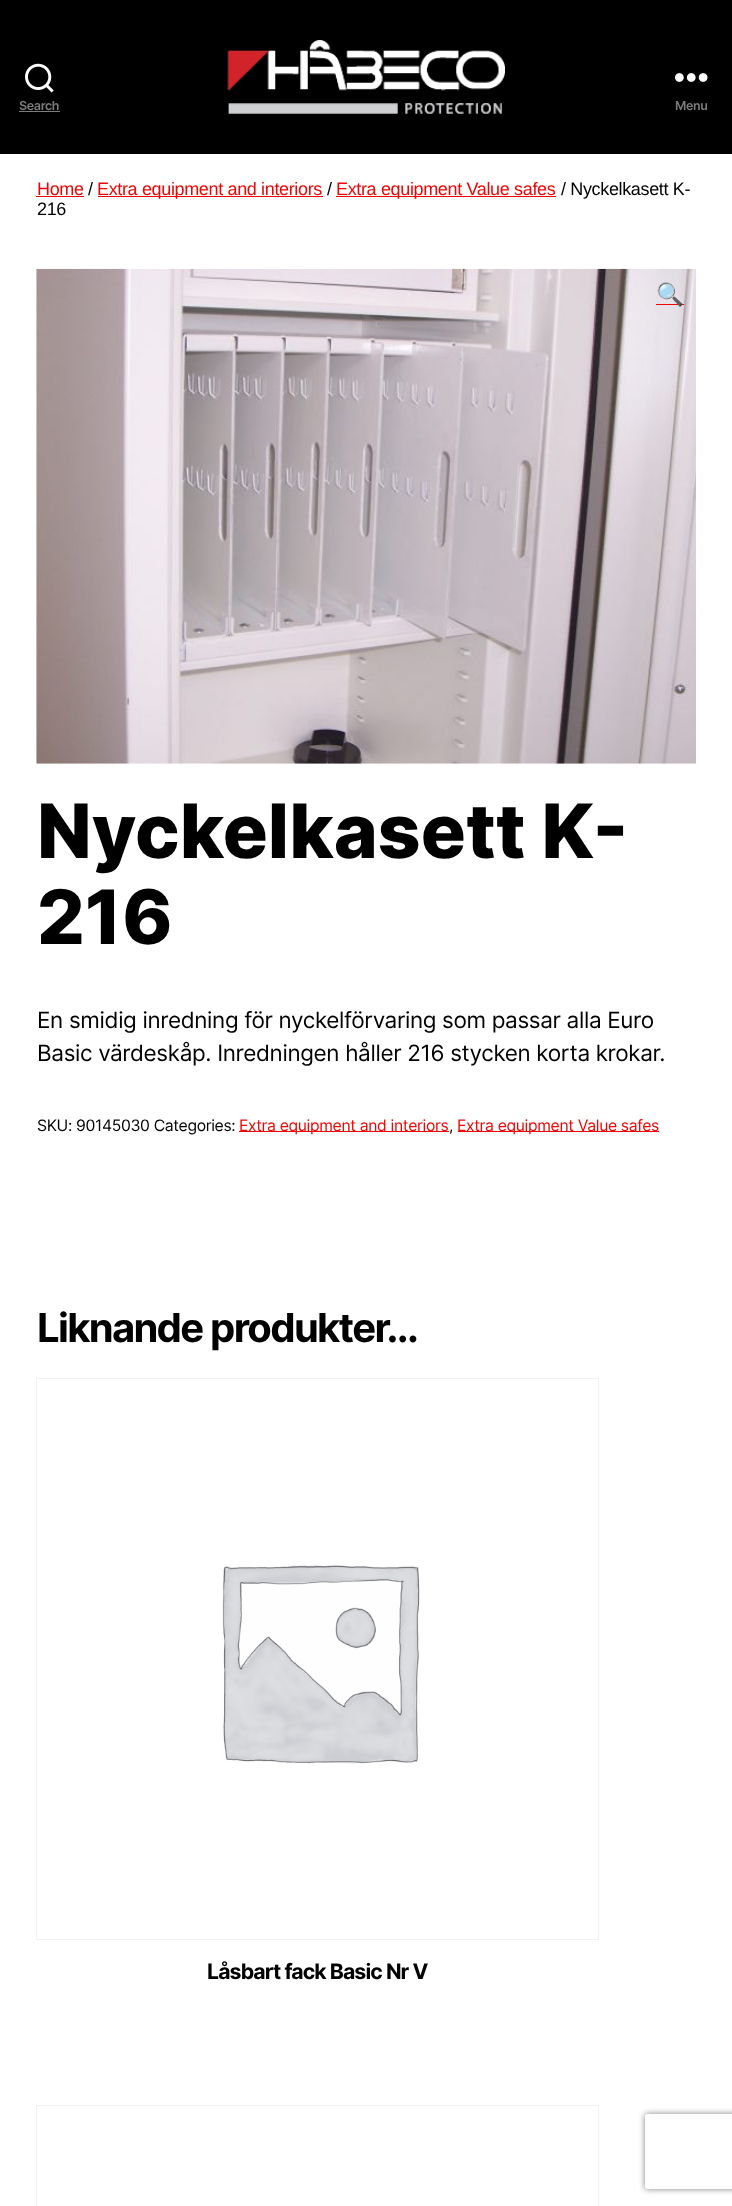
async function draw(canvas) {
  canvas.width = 732
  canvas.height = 2206
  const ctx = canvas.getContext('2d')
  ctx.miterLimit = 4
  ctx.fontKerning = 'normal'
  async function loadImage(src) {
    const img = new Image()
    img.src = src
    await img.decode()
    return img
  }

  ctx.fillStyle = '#fff'
  ctx.fillRect(0, 0, 732, 2206)
  ctx.fillStyle = '#000'
  ctx.fillRect(0, 0, 732, 154)
  ctx.drawImage(await loadImage('image0.png'), 25, 63, 29, 30)
  ctx.letterSpacing = '-0.35px'
  ctx.font = '600 12.5px Inter'
  ctx.fillStyle = '#7c7c7c'
  ctx.fillText('Search', 19, 110)
  ctx.fillRect(19, 111, 41, 1)
  ctx.drawImage(await loadImage('image1.png'), 227, 40, 278, 74)
  ctx.drawImage(await loadImage('image2.png'), 675, 73, 33, 9)
  ctx.fillText('Menu', 675, 110)
  ctx.font = '18px Liberation Sans'
  ctx.fillStyle = '#ee0606'
  ctx.fillText('Home', 37, 195)
  ctx.fillRect(36, 196, 48, 1)
  ctx.fillStyle = '#000'
  ctx.fillText('/', 88, 195)
  ctx.fillStyle = '#ee0606'
  ctx.fillRect(98, 196, 225, 1)
  ctx.fillText('Extra equipment and interiors', 97, 195)
  ctx.fillStyle = '#000'
  ctx.fillText('/', 327, 195)
  ctx.fillStyle = '#ee0606'
  ctx.fillRect(336, 196, 220, 1)
  ctx.fillText('Extra equipment Value safes', 336, 195)
  ctx.fillStyle = '#000'
  ctx.fillText('/ Nyckelkasett K-', 561, 195)
  ctx.fillText('216', 37, 215)
  ctx.drawImage(await loadImage('image3.png'), 36, 268, 661, 496)
  ctx.fillStyle = '#ee0606'
  ctx.fillRect(656, 304, 28, 1)
  ctx.font = '22.5px Noto Color Emoji'
  ctx.fillText('🔍', 656, 302)
  ctx.letterSpacing = '0px'
  ctx.font = '800 75px Inter'
  ctx.fillStyle = '#000'
  ctx.fillText('Nyckelkasett K-', 37, 858)
  ctx.fillText('216', 37, 944)
  ctx.letterSpacing = '-0.35px'
  ctx.font = '22.5px Inter'
  ctx.fillText('En smidig inredning för nyckelförvaring som passar alla Euro', 37, 1028)
  ctx.fillText('Basic värdeskåp. Inredningen håller 216 stycken korta krokar.', 37, 1061)
  ctx.font = '15.75px Inter'
  ctx.fillText('SKU: 90145030 Categories:', 37, 1131)
  ctx.fillStyle = '#ee0606'
  ctx.fillRect(239, 1131, 210, 1)
  ctx.fillText('Extra equipment and interiors', 239, 1131)
  ctx.fillStyle = '#000'
  ctx.fillText(',', 449, 1131)
  ctx.fillStyle = '#ee0606'
  ctx.fillRect(458, 1131, 201, 1)
  ctx.fillText('Extra equipment Value safes', 457, 1131)
  ctx.letterSpacing = '-1.7px'
  ctx.font = 'bold 40px Inter'
  ctx.fillStyle = '#000'
  ctx.fillText('Liknande produkter...', 37, 1342)
  ctx.strokeStyle = '#f2f2f2'
  ctx.strokeRect(36.5, 1378.5, 562, 561)
  ctx.drawImage(await loadImage('image4.png'), 222, 1565, 198, 199)
  ctx.letterSpacing = '-0.9px'
  ctx.font = 'bold 21.25px Inter'
  ctx.fillText('Låsbart fack Basic Nr V', 207, 1979)
  ctx.strokeRect(36.5, 2105.5, 562, 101)
  ctx.save()
  ctx.beginPath()
  ctx.moveTo(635, 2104)
  ctx.lineTo(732, 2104)
  ctx.lineTo(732, 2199)
  ctx.lineTo(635, 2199)
  ctx.closePath()
  ctx.moveTo(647.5, 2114)
  ctx.lineTo(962.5, 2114)
  ctx.bezierCurveTo(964, 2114, 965, 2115, 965, 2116.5)
  ctx.lineTo(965, 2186.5)
  ctx.bezierCurveTo(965, 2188, 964, 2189, 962.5, 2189)
  ctx.lineTo(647.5, 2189)
  ctx.bezierCurveTo(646, 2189, 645, 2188, 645, 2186.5)
  ctx.lineTo(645, 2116.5)
  ctx.bezierCurveTo(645, 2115, 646, 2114, 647.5, 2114)
  ctx.closePath()
  ctx.clip('evenodd')
  ctx.fillStyle = '#808080'
  ctx.filter = 'blur(3px)'
  ctx.beginPath()
  ctx.roundRect(645, 2114, 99, 75, 2.5)
  ctx.fill()
  ctx.filter = 'none'
  ctx.restore()
}

draw(document.querySelector('canvas'))
